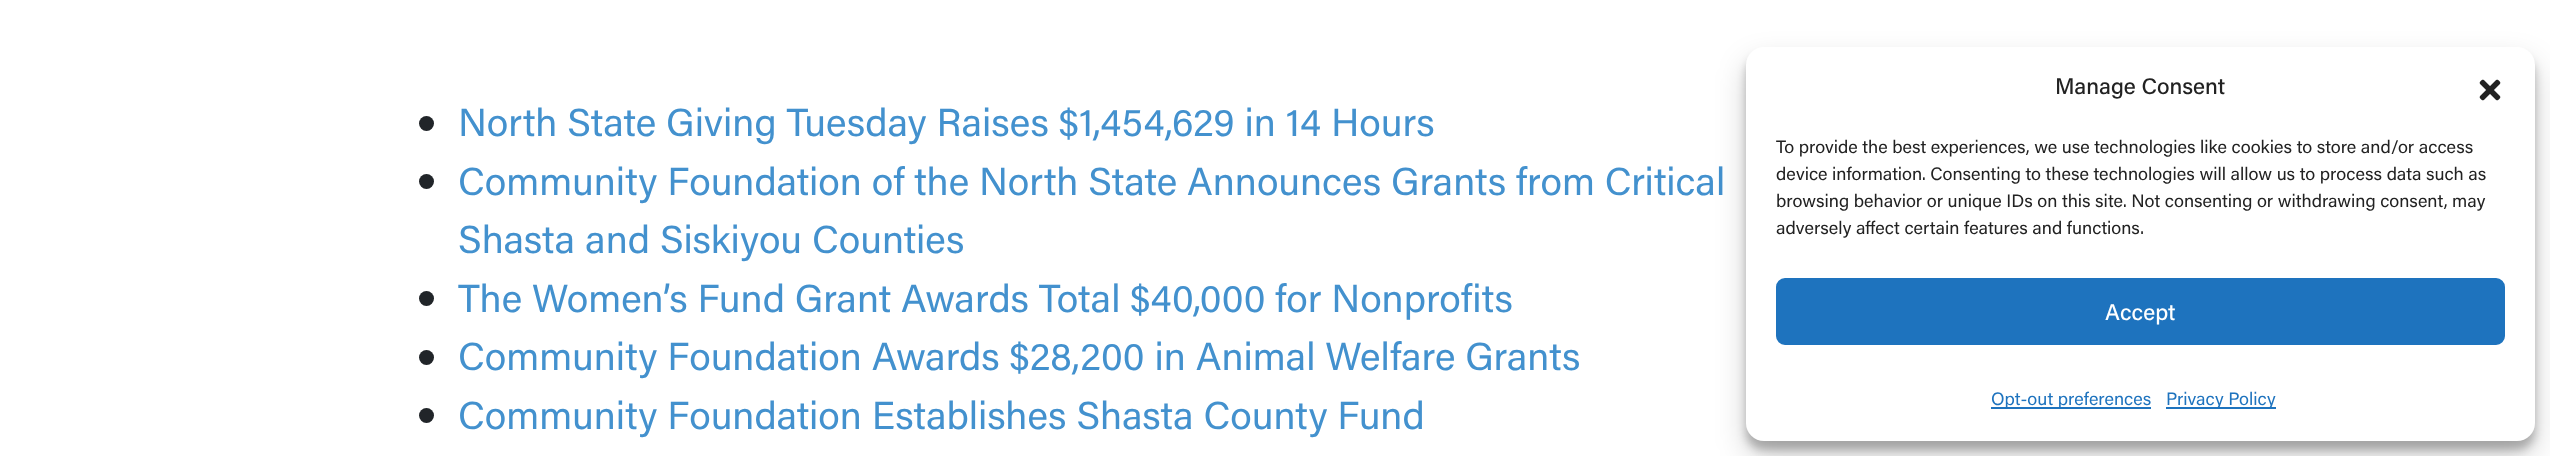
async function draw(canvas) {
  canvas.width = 2550
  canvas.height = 456
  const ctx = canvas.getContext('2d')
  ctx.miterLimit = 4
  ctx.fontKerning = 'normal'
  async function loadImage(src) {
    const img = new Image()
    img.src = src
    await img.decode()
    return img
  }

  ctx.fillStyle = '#fff'
  ctx.fillRect(0, 0, 2550, 456)
  ctx.fillStyle = '#212529'
  ctx.beginPath()
  ctx.arc(426.5, 123.5, 7.5, 0, 2 * Math.PI)
  ctx.fill()
  ctx.font = '39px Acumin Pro'
  ctx.fillStyle = '#4391ce'
  ctx.fillText('North State Giving Tuesday Raises $1,454,629 in 14 Hours', 458, 136)
  ctx.fillStyle = '#212529'
  ctx.beginPath()
  ctx.arc(426.5, 181.5, 7.5, 0, 2 * Math.PI)
  ctx.fill()
  ctx.fillStyle = '#4391ce'
  ctx.fillText('Community Foundation of the North State Announces Grants from Critical', 458, 195)
  ctx.fillText('Shasta and Siskiyou Counties', 458, 253)
  ctx.fillStyle = '#212529'
  ctx.beginPath()
  ctx.arc(426.5, 298.5, 7.5, 0, 2 * Math.PI)
  ctx.fill()
  ctx.fillStyle = '#4391ce'
  ctx.fillText('The Women’s Fund Grant Awards Total $40,000 for Nonprofits', 458, 312)
  ctx.fillStyle = '#212529'
  ctx.beginPath()
  ctx.arc(426.5, 357.5, 7.5, 0, 2 * Math.PI)
  ctx.fill()
  ctx.fillStyle = '#4391ce'
  ctx.fillText('Community Foundation Awards $28,200 in Animal Welfare Grants', 458, 370)
  ctx.fillStyle = '#212529'
  ctx.beginPath()
  ctx.arc(426.5, 415.5, 7.5, 0, 2 * Math.PI)
  ctx.fill()
  ctx.fillStyle = '#4391ce'
  ctx.fillText('Community Foundation Establishes Shasta County Fund', 458, 429)
  ctx.fillStyle = '#0000003b'
  ctx.filter = 'blur(4.5px)'
  ctx.beginPath()
  ctx.roundRect(1746, 56, 789, 394, 18)
  ctx.fill()
  ctx.filter = 'none'
  ctx.fillStyle = '#00000030'
  ctx.filter = 'blur(15px)'
  ctx.beginPath()
  ctx.roundRect(1746, 62, 789, 394, 18)
  ctx.fill()
  ctx.filter = 'none'
  ctx.fillStyle = '#fff'
  ctx.beginPath()
  ctx.roundRect(1746, 47, 789, 394, 18)
  ctx.fill()
  ctx.font = '500 22.5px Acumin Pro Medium'
  ctx.fillStyle = '#222'
  ctx.fillText('Manage Consent', 2055, 94)
  ctx.drawImage(await loadImage('image0.png'), 2479, 79, 22, 22)
  ctx.font = '18px Acumin Pro'
  ctx.fillText('To provide the best experiences, we use technologies like cookies to store and/or access', 1776, 153)
  ctx.fillText('device information. Consenting to these technologies will allow us to process data such as', 1776, 180)
  ctx.fillText('browsing behavior or unique IDs on this site. Not consenting or withdrawing consent, may', 1776, 207)
  ctx.fillText('adversely affect certain features and functions.', 1776, 234)
  ctx.fillStyle = '#1e73be'
  ctx.beginPath()
  ctx.roundRect(1777, 279, 727, 65, 8)
  ctx.fill()
  ctx.strokeStyle = '#1e73be'
  ctx.lineWidth = 2
  ctx.stroke()
  ctx.font = '500 22.5px Acumin Pro Medium'
  ctx.fillStyle = '#fff'
  ctx.fillText('Accept', 2105, 320)
  ctx.fillStyle = '#1e73be'
  ctx.fillRect(1991, 407, 160, 2)
  ctx.font = '18px Acumin Pro'
  ctx.fillText('Opt-out preferences', 1991, 405)
  ctx.fillRect(2166, 407, 110, 2)
  ctx.fillText('Privacy Policy', 2166, 405)
}

draw(document.querySelector('canvas'))
